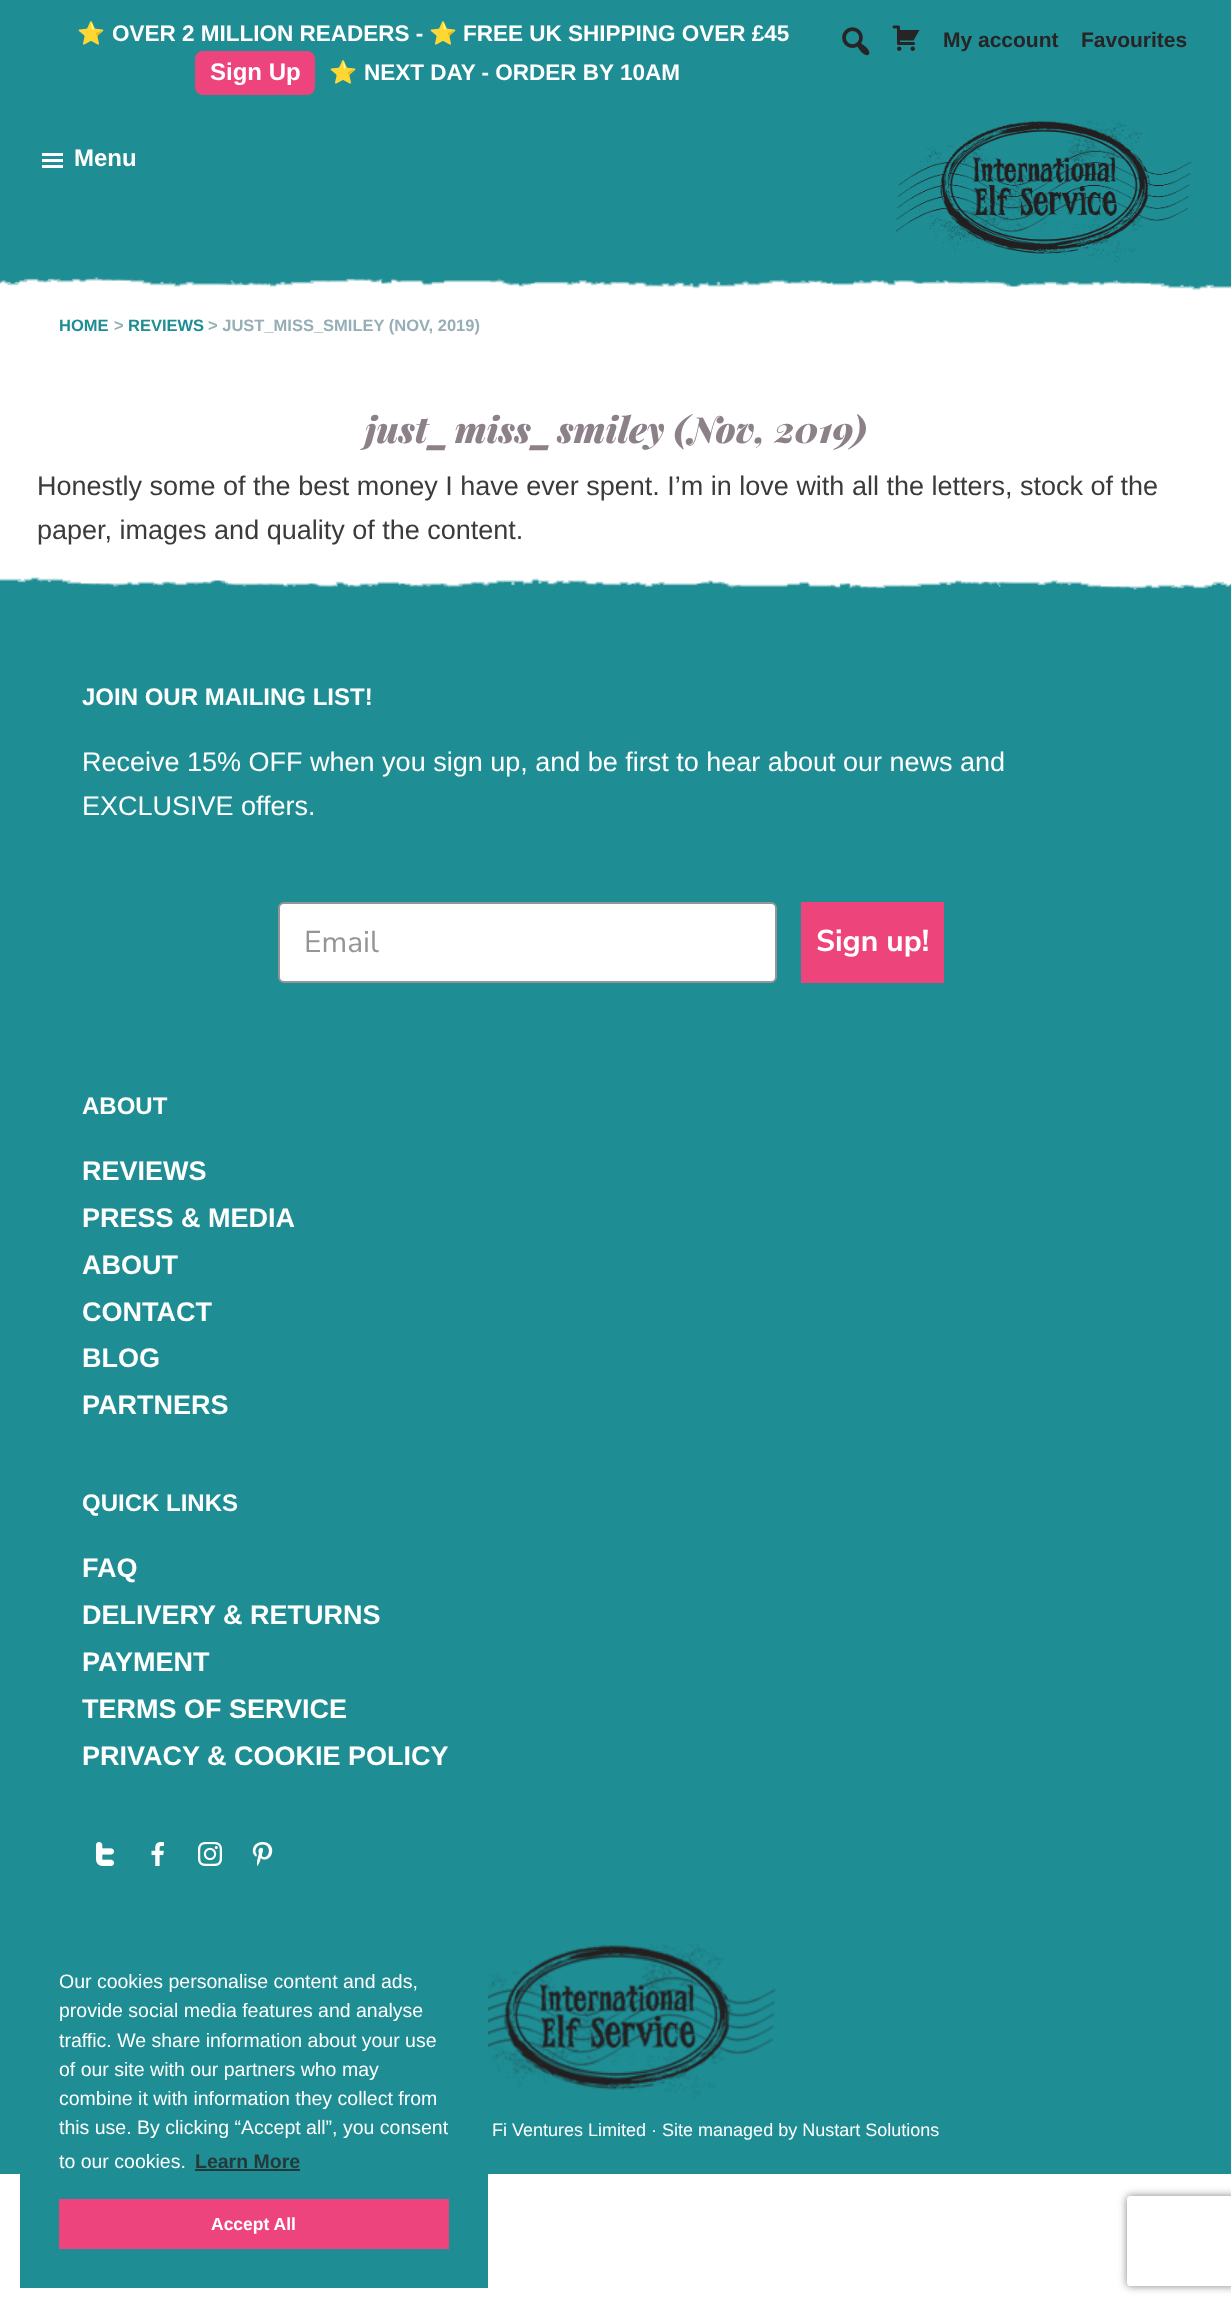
async function draw(canvas) {
  canvas.width = 1231
  canvas.height = 2306
  const ctx = canvas.getContext('2d')
  ctx.miterLimit = 4
  ctx.fontKerning = 'normal'
  async function loadImage(src) {
    const img = new Image()
    img.src = src
    await img.decode()
    return img
  }

  ctx.fillStyle = '#fff'
  ctx.fillRect(0, 0, 1231, 2306)
  ctx.fillStyle = '#1e8d94'
  ctx.fillRect(0, 0, 1231, 275)
  ctx.font = 'bold 22.5px Noto Color Emoji'
  ctx.fillStyle = '#fff'
  ctx.fillText('⭐️', 77, 41)
  ctx.font = 'bold 22.5px Liberation Sans'
  ctx.fillText('OVER 2 MILLION READERS -', 112, 41)
  ctx.font = 'bold 22.5px Noto Color Emoji'
  ctx.fillText('⭐️', 429, 41)
  ctx.font = 'bold 22.5px Liberation Sans'
  ctx.fillText('FREE UK SHIPPING OVER £45', 463, 41)
  ctx.fillStyle = '#ee447d'
  ctx.beginPath()
  ctx.roundRect(195, 51, 120, 44, 8)
  ctx.fill()
  ctx.font = 'bold 24px Liberation Sans'
  ctx.fillStyle = '#fff'
  ctx.fillText('Sign Up', 210, 80)
  ctx.font = 'bold 22.5px Noto Color Emoji'
  ctx.fillText('⭐️', 329, 80)
  ctx.font = 'bold 22.5px Liberation Sans'
  ctx.fillText('NEXT DAY - ORDER BY 10AM', 364, 80)
  ctx.drawImage(await loadImage('image0.png'), 842, 27, 28, 29)
  ctx.drawImage(await loadImage('image1.png'), 892, 25, 28, 26)
  ctx.font = 'bold 21px Liberation Sans'
  ctx.fillStyle = '#272425'
  ctx.fillText('My account', 943, 47)
  ctx.fillText('Favourites', 1081, 47)
  ctx.drawImage(await loadImage('image2.png'), 42, 153, 21, 15)
  ctx.font = 'bold 24px Liberation Sans'
  ctx.fillStyle = '#fff'
  ctx.fillText('Menu', 74, 166)
  ctx.drawImage(await loadImage('image3.png'), 895, 116, 297, 146)
  ctx.drawImage(await loadImage('image4.png'), 0, 275, 1231, 15)
  ctx.font = 'bold 16.5px Liberation Sans'
  ctx.fillStyle = '#1e8d94'
  ctx.fillText('HOME', 59, 331)
  ctx.fillStyle = '#96aeb5'
  ctx.fillText('>', 114, 331)
  ctx.fillStyle = '#1e8d94'
  ctx.fillText('REVIEWS', 128, 331)
  ctx.fillStyle = '#96aeb5'
  ctx.fillText('> JUST_MISS_SMILEY (NOV, 2019)', 208, 331)
  ctx.font = 'italic 900 36px Playfair Display'
  ctx.fillStyle = '#8c8188'
  ctx.fillText('just_miss_smiley (Nov, 2019)', 365, 443)
  ctx.font = '27px Liberation Sans'
  ctx.fillStyle = '#3b3b3b'
  ctx.fillText('Honestly some of the best money I have ever spent. I’m in love with all the letters, stock of the', 37, 495)
  ctx.fillText('paper, images and quality of the content.', 37, 539)
  ctx.drawImage(await loadImage('image5.png'), 0, 577, 1231, 16)
  ctx.fillStyle = '#1e8d94'
  ctx.fillRect(0, 593, 1231, 1581)
  ctx.font = 'bold 24px Liberation Sans'
  ctx.fillStyle = '#fff'
  ctx.fillText('JOIN OUR MAILING LIST!', 82, 705)
  ctx.font = '27px Liberation Sans'
  ctx.fillText('Receive 15% OFF when you sign up, and be first to hear about our news and', 82, 771)
  ctx.fillText('EXCLUSIVE offers.', 82, 815)
  ctx.beginPath()
  ctx.roundRect(279, 903, 497, 79, 5)
  ctx.fill()
  ctx.strokeStyle = '#949596'
  ctx.lineWidth = 2
  ctx.stroke()
  ctx.font = '30px Nunito Sans'
  ctx.fillStyle = '#949596'
  ctx.fillText('Email', 304, 952)
  ctx.fillStyle = '#ee447c'
  ctx.fillRect(801, 902, 143, 81)
  ctx.font = 'bold 30px Nunito Sans'
  ctx.fillStyle = '#fff'
  ctx.fillText('Sign up!', 816, 951)
  ctx.font = 'bold 24px Liberation Sans'
  ctx.fillText('ABOUT', 82, 1114)
  ctx.font = 'bold 27px Liberation Sans'
  ctx.fillText('REVIEWS', 82, 1180)
  ctx.fillText('PRESS & MEDIA', 82, 1227)
  ctx.fillText('ABOUT', 82, 1274)
  ctx.fillText('CONTACT', 82, 1321)
  ctx.fillText('BLOG', 82, 1367)
  ctx.fillText('PARTNERS', 82, 1414)
  ctx.font = 'bold 24px Liberation Sans'
  ctx.fillText('QUICK LINKS', 82, 1511)
  ctx.font = 'bold 27px Liberation Sans'
  ctx.fillText('FAQ', 82, 1577)
  ctx.fillText('DELIVERY & RETURNS', 82, 1624)
  ctx.fillText('PAYMENT', 82, 1671)
  ctx.fillText('TERMS OF SERVICE', 82, 1718)
  ctx.fillText('PRIVACY & COOKIE POLICY', 82, 1765)
  ctx.drawImage(await loadImage('image6.png'), 95, 1842, 20, 24)
  ctx.drawImage(await loadImage('image7.png'), 151, 1842, 13, 24)
  ctx.drawImage(await loadImage('image8.png'), 198, 1842, 24, 24)
  ctx.drawImage(await loadImage('image9.png'), 252, 1842, 21, 24)
  ctx.drawImage(await loadImage('image10.png'), 488, 1940, 288, 159)
  ctx.font = '18px Liberation Sans'
  ctx.fillText('Fi Ventures Limited · Site managed by Nustart Solutions', 492, 2136)
  ctx.fillStyle = '#1e8d94'
  ctx.fillRect(20, 2174, 468, 114)
  ctx.font = '19.5px Liberation Sans'
  ctx.fillStyle = '#fff'
  ctx.fillText('Our cookies personalise content and ads,', 59, 1988)
  ctx.fillText('provide social media features and analyse', 59, 2017)
  ctx.fillText('traffic. We share information about your use', 59, 2047)
  ctx.fillText('of our site with our partners who may', 59, 2076)
  ctx.fillText('combine it with information they collect from', 59, 2105)
  ctx.fillText('this use. By clicking “Accept all”, you consent', 59, 2134)
  ctx.fillText('to our cookies.', 59, 2168)
  ctx.font = 'bold 19.5px Liberation Sans'
  ctx.fillStyle = '#25393b'
  ctx.fillText('Learn More', 195, 2168)
  ctx.fillRect(195, 2169, 105, 2)
  ctx.fillStyle = '#ee447d'
  ctx.fillRect(59, 2199, 390, 50)
  ctx.font = 'bold 17.5px Liberation Sans'
  ctx.fillStyle = '#fff'
  ctx.fillText('Accept All', 211, 2230)
  ctx.save()
  ctx.beginPath()
  ctx.moveTo(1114, 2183)
  ctx.lineTo(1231, 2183)
  ctx.lineTo(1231, 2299)
  ctx.lineTo(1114, 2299)
  ctx.closePath()
  ctx.moveTo(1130, 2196)
  ctx.lineTo(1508, 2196)
  ctx.bezierCurveTo(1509.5, 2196, 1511, 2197.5, 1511, 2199)
  ctx.lineTo(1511, 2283)
  ctx.bezierCurveTo(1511, 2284.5, 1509.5, 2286, 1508, 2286)
  ctx.lineTo(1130, 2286)
  ctx.bezierCurveTo(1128.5, 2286, 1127, 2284.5, 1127, 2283)
  ctx.lineTo(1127, 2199)
  ctx.bezierCurveTo(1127, 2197.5, 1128.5, 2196, 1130, 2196)
  ctx.closePath()
  ctx.clip('evenodd')
  ctx.fillStyle = '#808080'
  ctx.filter = 'blur(4px)'
  ctx.beginPath()
  ctx.roundRect(1127, 2196, 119, 90, 3)
  ctx.fill()
  ctx.filter = 'none'
  ctx.restore()
}

draw(document.querySelector('canvas'))
